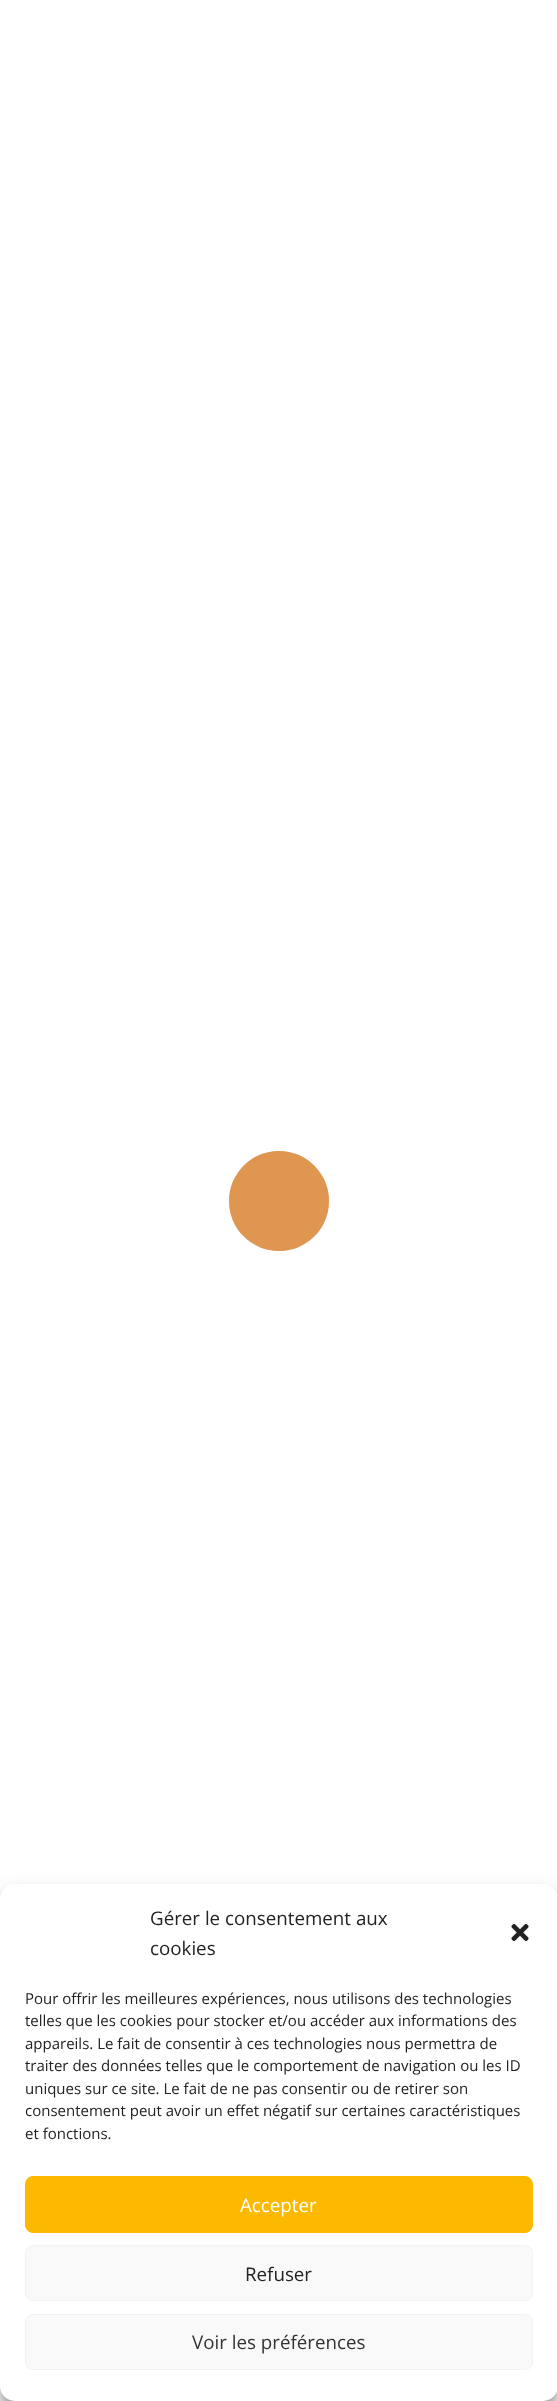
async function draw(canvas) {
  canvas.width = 557
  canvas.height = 2401
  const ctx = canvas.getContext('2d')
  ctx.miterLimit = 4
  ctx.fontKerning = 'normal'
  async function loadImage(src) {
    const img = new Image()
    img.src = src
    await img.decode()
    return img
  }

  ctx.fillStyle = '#fff'
  ctx.fillRect(0, 0, 557, 2401)
  ctx.fillStyle = '#e8b483'
  ctx.beginPath()
  ctx.arc(279, 1201, 50, 0, 2 * Math.PI)
  ctx.fill()
  ctx.fillStyle = '#d9823099'
  ctx.beginPath()
  ctx.arc(279, 1201, 50, 0, 2 * Math.PI)
  ctx.fill()
  ctx.fillStyle = '#0000003b'
  ctx.filter = 'blur(4px)'
  ctx.beginPath()
  ctx.roundRect(0, 1891, 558, 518, 15)
  ctx.fill()
  ctx.filter = 'none'
  ctx.fillStyle = '#00000030'
  ctx.filter = 'blur(12.5px)'
  ctx.beginPath()
  ctx.roundRect(0, 1896, 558, 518, 15)
  ctx.fill()
  ctx.filter = 'none'
  ctx.fillStyle = '#fff'
  ctx.beginPath()
  ctx.roundRect(0, 1884, 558, 517, 15)
  ctx.fill()
  ctx.font = '18.75px Open Sans'
  ctx.fillStyle = '#222'
  ctx.fillText('Gérer le consentement aux', 150, 1925)
  ctx.fillText('cookies', 150, 1955)
  ctx.drawImage(await loadImage('image0.png'), 511, 1923, 18, 18)
  ctx.font = '15px Open Sans'
  ctx.fillText('Pour offrir les meilleures expériences, nous utilisons des technologies', 25, 2004)
  ctx.fillText('telles que les cookies pour stocker et/ou accéder aux informations des', 25, 2026)
  ctx.fillText('appareils. Le fait de consentir à ces technologies nous permettra de', 25, 2049)
  ctx.fillText('traiter des données telles que le comportement de navigation ou les ID', 25, 2071)
  ctx.fillText('uniques sur ce site. Le fait de ne pas consentir ou de retirer son', 25, 2094)
  ctx.fillText('consentement peut avoir un effet négatif sur certaines caractéristiques', 25, 2116)
  ctx.fillText('et fonctions.', 25, 2139)
  ctx.fillStyle = '#fdb900'
  ctx.beginPath()
  ctx.roundRect(25.5, 2176.5, 507, 56, 7.5)
  ctx.fill()
  ctx.strokeStyle = '#fdb900'
  ctx.stroke()
  ctx.font = '18.75px Open Sans'
  ctx.fillStyle = '#fff'
  ctx.fillText('Accepter', 240, 2212)
  ctx.fillStyle = '#f9f9f9'
  ctx.beginPath()
  ctx.roundRect(25.5, 2245.5, 507, 55, 7.5)
  ctx.fill()
  ctx.strokeStyle = '#f2f2f2'
  ctx.stroke()
  ctx.fillStyle = '#222'
  ctx.fillText('Refuser', 245, 2281)
  ctx.fillStyle = '#f9f9f9'
  ctx.beginPath()
  ctx.roundRect(25.5, 2314.5, 507, 55, 7.5)
  ctx.fill()
  ctx.stroke()
  ctx.fillStyle = '#333'
  ctx.fillText('Voir les préférences', 192, 2349)
}

draw(document.querySelector('canvas'))
